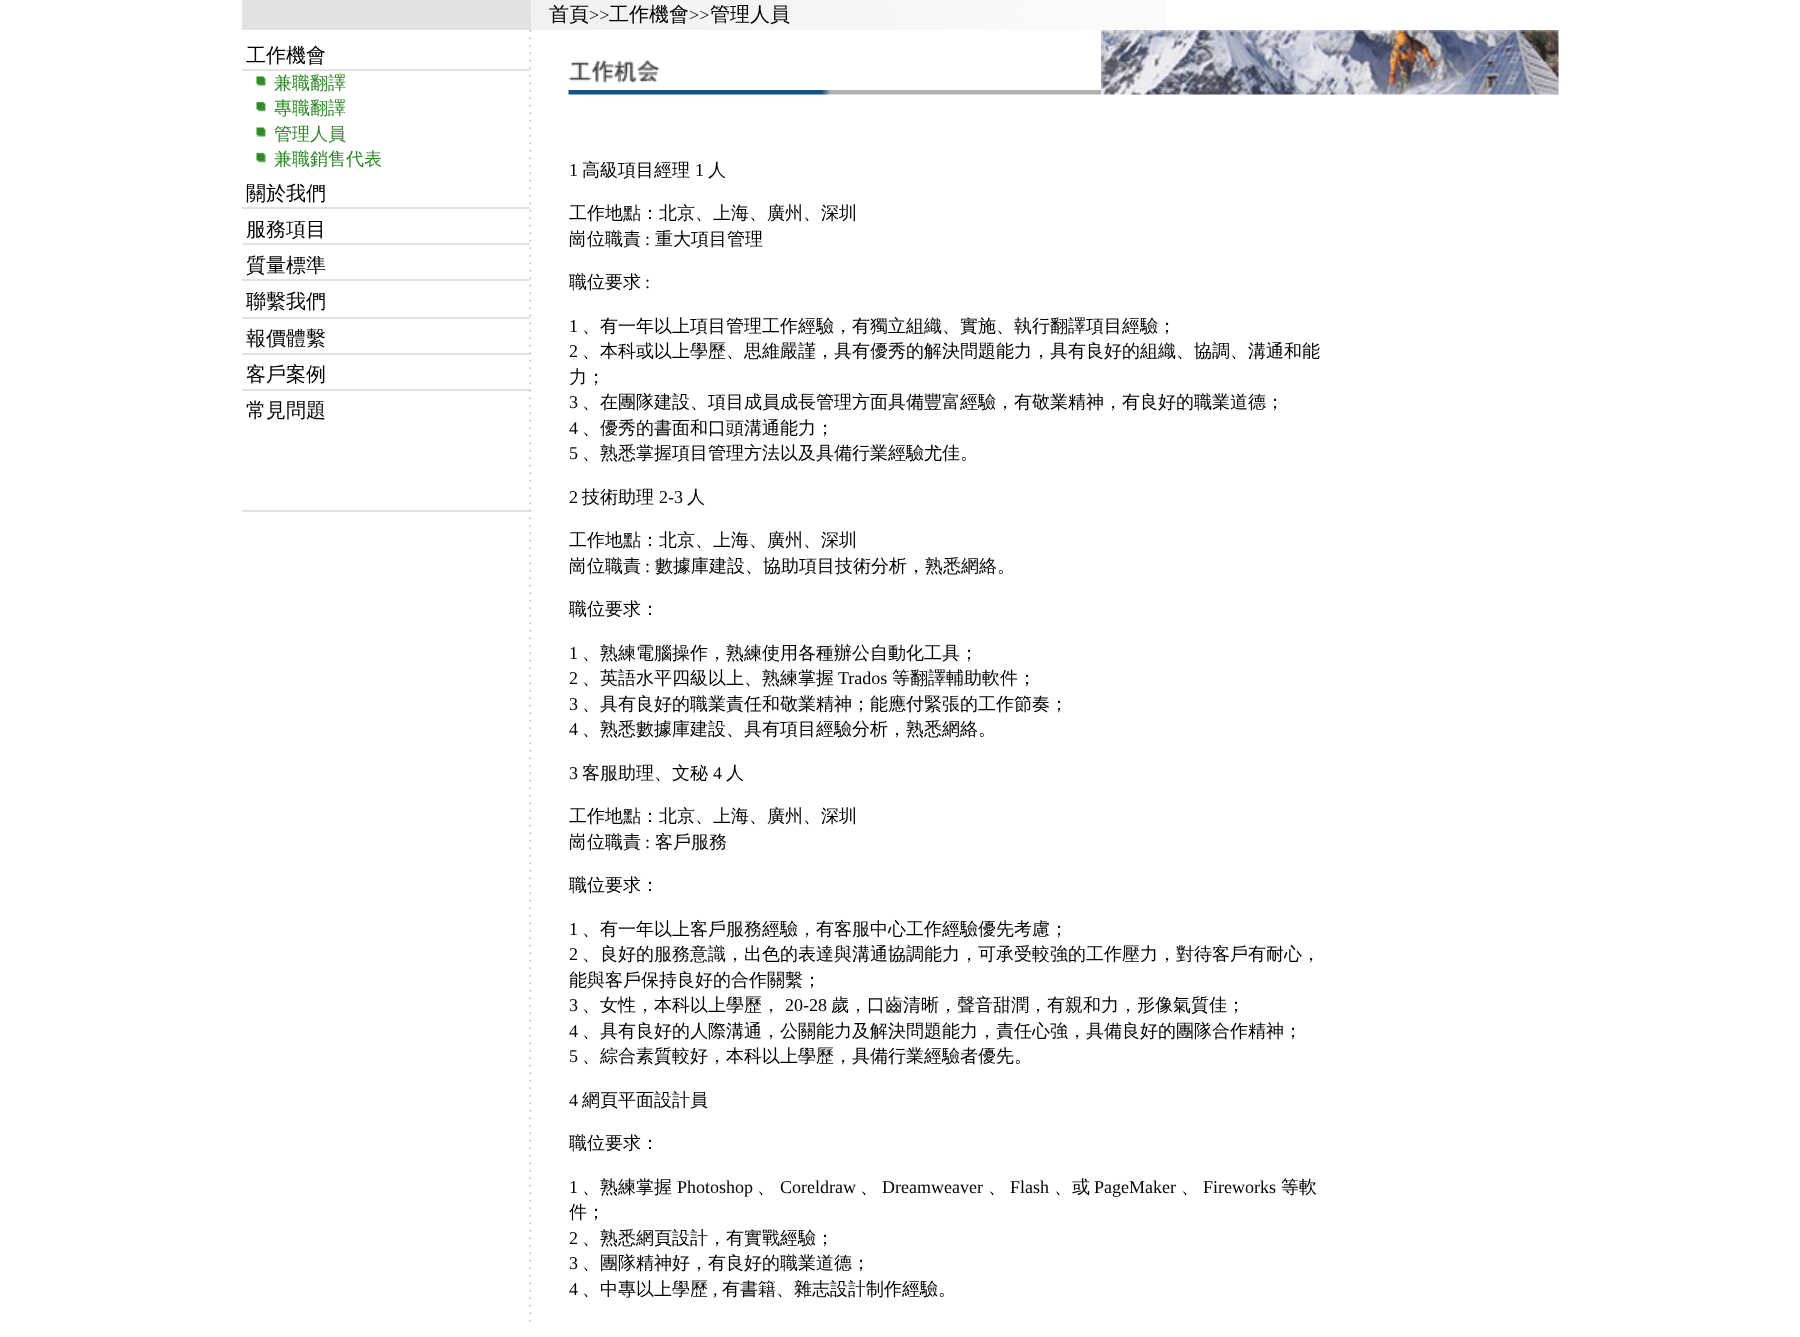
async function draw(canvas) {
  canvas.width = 1800
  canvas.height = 1337
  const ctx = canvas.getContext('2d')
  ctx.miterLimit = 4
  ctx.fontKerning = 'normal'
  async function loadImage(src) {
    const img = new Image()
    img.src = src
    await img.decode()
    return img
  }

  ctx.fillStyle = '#fff'
  ctx.fillRect(0, 0, 1800, 1337)
  ctx.fillStyle = '#e2e2e2'
  ctx.fillRect(242, 0, 289, 30)
  ctx.drawImage(await loadImage('image0.png'), 531, 0, 635, 30)
  ctx.font = '500 20px WenQuanYi Zen Hei'
  ctx.fillStyle = '#000'
  ctx.fillText('首頁', 549, 21)
  ctx.font = '18px Liberation Serif'
  ctx.fillText('>>', 589, 21)
  ctx.font = '500 20px WenQuanYi Zen Hei'
  ctx.fillText('工作機會', 609, 21)
  ctx.font = '18px Liberation Serif'
  ctx.fillText('>>', 689, 21)
  ctx.font = '500 20px WenQuanYi Zen Hei'
  ctx.fillText('管理人員', 710, 21)
  ctx.fillText('工作機會', 246, 62)
  ctx.fillStyle = '#e2e2e2'
  ctx.fillRect(242, 69, 288, 2)
  ctx.drawImage(await loadImage('image1.png'), 256, 76, 10, 10)
  ctx.font = '500 18px WenQuanYi Zen Hei'
  ctx.fillStyle = '#2f8927'
  ctx.fillText('兼職翻譯', 274, 89)
  ctx.drawImage(await loadImage('image2.png'), 256, 101, 10, 11)
  ctx.fillText('專職翻譯', 274, 114)
  ctx.drawImage(await loadImage('image1.png'), 256, 127, 10, 10)
  ctx.fillText('管理人員', 274, 140)
  ctx.drawImage(await loadImage('image2.png'), 256, 152, 10, 11)
  ctx.fillText('兼職銷售代表', 274, 165)
  ctx.font = '500 20px WenQuanYi Zen Hei'
  ctx.fillStyle = '#000'
  ctx.fillText('關於我們', 246, 200)
  ctx.fillStyle = '#e2e2e2'
  ctx.fillRect(242, 207, 288, 2)
  ctx.fillStyle = '#000'
  ctx.fillText('服務項目', 246, 236)
  ctx.fillStyle = '#e2e2e2'
  ctx.fillRect(242, 243, 288, 2)
  ctx.fillStyle = '#000'
  ctx.fillText('質量標準', 246, 272)
  ctx.fillStyle = '#e2e2e2'
  ctx.fillRect(242, 279, 288, 2)
  ctx.fillStyle = '#000'
  ctx.fillText('聯繫我們', 246, 308)
  ctx.fillStyle = '#e2e2e2'
  ctx.fillRect(242, 317, 288, 2)
  ctx.fillStyle = '#000'
  ctx.fillText('報價體繫', 246, 345)
  ctx.fillStyle = '#e2e2e2'
  ctx.fillRect(242, 353, 288, 2)
  ctx.fillStyle = '#000'
  ctx.fillText('客戶案例', 246, 381)
  ctx.fillStyle = '#e2e2e2'
  ctx.fillRect(242, 389, 288, 2)
  ctx.fillStyle = '#000'
  ctx.fillText('常見問題', 246, 417)
  ctx.fillStyle = '#e2e2e2'
  ctx.fillRect(242, 510, 288, 2)
  ctx.drawImage(await loadImage('image3.png'), 529, 30, 2, 1292)
  ctx.drawImage(await loadImage('image4.png'), 568, 59, 91, 24)
  ctx.drawImage(await loadImage('image5.png'), 568, 90, 533, 5)
  ctx.drawImage(await loadImage('image6.png'), 1101, 30, 458, 65)
  ctx.font = '18px Liberation Serif'
  ctx.fillStyle = '#000'
  ctx.fillText('1', 569, 176)
  ctx.font = '500 18px WenQuanYi Zen Hei'
  ctx.fillText('高級項目經理', 582, 176)
  ctx.font = '18px Liberation Serif'
  ctx.fillText('1', 695, 176)
  ctx.font = '500 18px WenQuanYi Zen Hei'
  ctx.fillText('人', 708, 176)
  ctx.fillText('工作地點：北京、上海、廣州、深圳', 569, 219)
  ctx.fillText('崗位職責', 569, 245)
  ctx.font = '18px Liberation Serif'
  ctx.fillText(':', 645, 245)
  ctx.font = '500 18px WenQuanYi Zen Hei'
  ctx.fillText('重大項目管理', 655, 245)
  ctx.fillText('職位要求', 569, 288)
  ctx.font = '18px Liberation Serif'
  ctx.fillText(':', 645, 288)
  ctx.fillText('1', 569, 332)
  ctx.font = '500 18px WenQuanYi Zen Hei'
  ctx.fillText('、有一年以上項目管理工作經驗，有獨立組織、實施、執行翻譯項目經驗；', 582, 332)
  ctx.font = '18px Liberation Serif'
  ctx.fillText('2', 569, 357)
  ctx.font = '500 18px WenQuanYi Zen Hei'
  ctx.fillText('、本科或以上學歷、思維嚴謹，具有優秀的解決問題能力，具有良好的組織、協調、溝通和能', 582, 357)
  ctx.fillText('力；', 569, 383)
  ctx.font = '18px Liberation Serif'
  ctx.fillText('3', 569, 408)
  ctx.font = '500 18px WenQuanYi Zen Hei'
  ctx.fillText('、在團隊建設、項目成員成長管理方面具備豐富經驗，有敬業精神，有良好的職業道德；', 582, 408)
  ctx.font = '18px Liberation Serif'
  ctx.fillText('4', 569, 434)
  ctx.font = '500 18px WenQuanYi Zen Hei'
  ctx.fillText('、優秀的書面和口頭溝通能力；', 582, 434)
  ctx.font = '18px Liberation Serif'
  ctx.fillText('5', 569, 459)
  ctx.font = '500 18px WenQuanYi Zen Hei'
  ctx.fillText('、熟悉掌握項目管理方法以及具備行業經驗尤佳。', 582, 459)
  ctx.font = '18px Liberation Serif'
  ctx.fillText('2', 569, 503)
  ctx.font = '500 18px WenQuanYi Zen Hei'
  ctx.fillText('技術助理', 582, 503)
  ctx.font = '18px Liberation Serif'
  ctx.fillText('2-3', 659, 503)
  ctx.font = '500 18px WenQuanYi Zen Hei'
  ctx.fillText('人', 687, 503)
  ctx.fillText('工作地點：北京、上海、廣州、深圳', 569, 546)
  ctx.fillText('崗位職責', 569, 572)
  ctx.font = '18px Liberation Serif'
  ctx.fillText(':', 645, 572)
  ctx.font = '500 18px WenQuanYi Zen Hei'
  ctx.fillText('數據庫建設、協助項目技術分析，熟悉網絡。', 655, 572)
  ctx.fillText('職位要求：', 569, 615)
  ctx.font = '18px Liberation Serif'
  ctx.fillText('1', 569, 659)
  ctx.font = '500 18px WenQuanYi Zen Hei'
  ctx.fillText('、熟練電腦操作，熟練使用各種辦公自動化工具；', 582, 659)
  ctx.font = '18px Liberation Serif'
  ctx.fillText('2', 569, 684)
  ctx.font = '500 18px WenQuanYi Zen Hei'
  ctx.fillText('、英語水平四級以上、熟練掌握', 582, 684)
  ctx.font = '18px Liberation Serif'
  ctx.fillText('Trados', 838, 684)
  ctx.font = '500 18px WenQuanYi Zen Hei'
  ctx.fillText('等翻譯輔助軟件；', 892, 684)
  ctx.font = '18px Liberation Serif'
  ctx.fillText('3', 569, 710)
  ctx.font = '500 18px WenQuanYi Zen Hei'
  ctx.fillText('、具有良好的職業責任和敬業精神；能應付緊張的工作節奏；', 582, 710)
  ctx.font = '18px Liberation Serif'
  ctx.fillText('4', 569, 735)
  ctx.font = '500 18px WenQuanYi Zen Hei'
  ctx.fillText('、熟悉數據庫建設、具有項目經驗分析，熟悉網絡。', 582, 735)
  ctx.font = '18px Liberation Serif'
  ctx.fillText('3', 569, 779)
  ctx.font = '500 18px WenQuanYi Zen Hei'
  ctx.fillText('客服助理、文秘', 582, 779)
  ctx.font = '18px Liberation Serif'
  ctx.fillText('4', 713, 779)
  ctx.font = '500 18px WenQuanYi Zen Hei'
  ctx.fillText('人', 726, 779)
  ctx.fillText('工作地點：北京、上海、廣州、深圳', 569, 822)
  ctx.fillText('崗位職責', 569, 848)
  ctx.font = '18px Liberation Serif'
  ctx.fillText(':', 645, 848)
  ctx.font = '500 18px WenQuanYi Zen Hei'
  ctx.fillText('客戶服務', 655, 848)
  ctx.fillText('職位要求：', 569, 891)
  ctx.font = '18px Liberation Serif'
  ctx.fillText('1', 569, 935)
  ctx.font = '500 18px WenQuanYi Zen Hei'
  ctx.fillText('、有一年以上客戶服務經驗，有客服中心工作經驗優先考慮；', 582, 935)
  ctx.font = '18px Liberation Serif'
  ctx.fillText('2', 569, 960)
  ctx.font = '500 18px WenQuanYi Zen Hei'
  ctx.fillText('、良好的服務意識，出色的表達與溝通協調能力，可承受較強的工作壓力，對待客戶有耐心，', 582, 960)
  ctx.fillText('能與客戶保持良好的合作關繫；', 569, 986)
  ctx.font = '18px Liberation Serif'
  ctx.fillText('3', 569, 1011)
  ctx.font = '500 18px WenQuanYi Zen Hei'
  ctx.fillText('、女性，本科以上學歷，', 582, 1011)
  ctx.font = '18px Liberation Serif'
  ctx.fillText('20-28', 785, 1011)
  ctx.font = '500 18px WenQuanYi Zen Hei'
  ctx.fillText('歲，口齒清晰，聲音甜潤，有親和力，形像氣質佳；', 831, 1011)
  ctx.font = '18px Liberation Serif'
  ctx.fillText('4', 569, 1037)
  ctx.font = '500 18px WenQuanYi Zen Hei'
  ctx.fillText('、具有良好的人際溝通，公關能力及解決問題能力，責任心強，具備良好的團隊合作精神；', 582, 1037)
  ctx.font = '18px Liberation Serif'
  ctx.fillText('5', 569, 1062)
  ctx.font = '500 18px WenQuanYi Zen Hei'
  ctx.fillText('、綜合素質較好，本科以上學歷，具備行業經驗者優先。', 582, 1062)
  ctx.font = '18px Liberation Serif'
  ctx.fillText('4', 569, 1106)
  ctx.font = '500 18px WenQuanYi Zen Hei'
  ctx.fillText('網頁平面設計員', 582, 1106)
  ctx.fillText('職位要求：', 569, 1149)
  ctx.font = '18px Liberation Serif'
  ctx.fillText('1', 569, 1193)
  ctx.font = '500 18px WenQuanYi Zen Hei'
  ctx.fillText('、熟練掌握', 582, 1193)
  ctx.font = '18px Liberation Serif'
  ctx.fillText('Photoshop', 677, 1193)
  ctx.font = '500 18px WenQuanYi Zen Hei'
  ctx.fillText('、', 757, 1193)
  ctx.font = '18px Liberation Serif'
  ctx.fillText('Coreldraw', 780, 1193)
  ctx.font = '500 18px WenQuanYi Zen Hei'
  ctx.fillText('、', 860, 1193)
  ctx.font = '18px Liberation Serif'
  ctx.fillText('Dreamweaver', 882, 1193)
  ctx.font = '500 18px WenQuanYi Zen Hei'
  ctx.fillText('、', 988, 1193)
  ctx.font = '18px Liberation Serif'
  ctx.fillText('Flash', 1010, 1193)
  ctx.font = '500 18px WenQuanYi Zen Hei'
  ctx.fillText('、或', 1054, 1193)
  ctx.font = '18px Liberation Serif'
  ctx.fillText('PageMaker', 1094, 1193)
  ctx.font = '500 18px WenQuanYi Zen Hei'
  ctx.fillText('、', 1181, 1193)
  ctx.font = '18px Liberation Serif'
  ctx.fillText('Fireworks', 1203, 1193)
  ctx.font = '500 18px WenQuanYi Zen Hei'
  ctx.fillText('等軟', 1281, 1193)
  ctx.fillText('件；', 569, 1218)
  ctx.font = '18px Liberation Serif'
  ctx.fillText('2', 569, 1244)
  ctx.font = '500 18px WenQuanYi Zen Hei'
  ctx.fillText('、熟悉網頁設計，有實戰經驗；', 582, 1244)
  ctx.font = '18px Liberation Serif'
  ctx.fillText('3', 569, 1269)
  ctx.font = '500 18px WenQuanYi Zen Hei'
  ctx.fillText('、團隊精神好，有良好的職業道德；', 582, 1269)
  ctx.font = '18px Liberation Serif'
  ctx.fillText('4', 569, 1295)
  ctx.font = '500 18px WenQuanYi Zen Hei'
  ctx.fillText('、中專以上學歷', 582, 1295)
  ctx.fillText('有書籍、雜志設計制作經驗。', 722, 1295)
  ctx.font = '18px Liberation Serif'
  ctx.fillText(',', 713, 1295)
}

draw(document.querySelector('canvas'))
